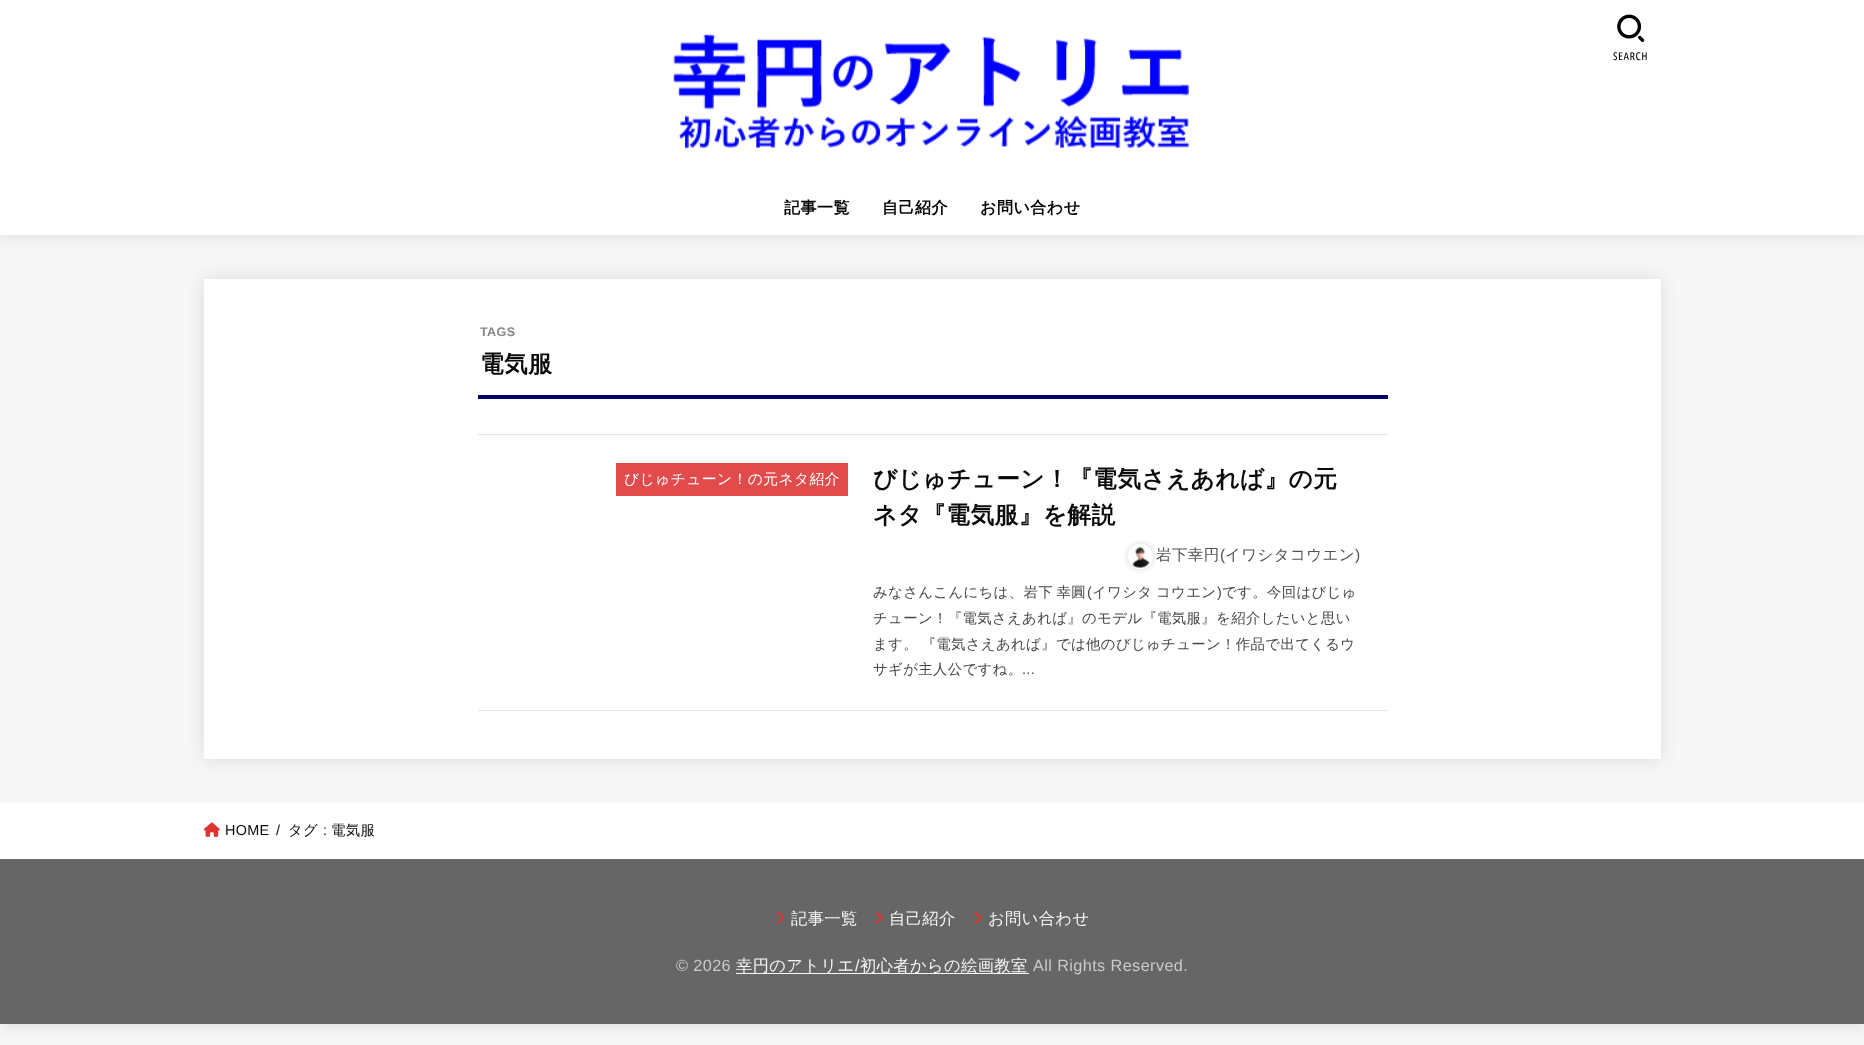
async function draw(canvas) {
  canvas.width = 1864
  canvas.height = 1045
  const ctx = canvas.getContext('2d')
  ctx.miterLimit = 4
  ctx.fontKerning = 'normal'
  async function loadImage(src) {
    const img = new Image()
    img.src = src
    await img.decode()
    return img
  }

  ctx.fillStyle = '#f7f7f7'
  ctx.fillRect(0, 0, 1864, 1045)
  ctx.fillStyle = '#66666633'
  ctx.filter = 'blur(9.5px)'
  ctx.beginPath()
  ctx.rect(0, 0, 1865, 235)
  ctx.fill()
  ctx.filter = 'none'
  ctx.fillStyle = '#fff'
  ctx.fillRect(0, 0, 1864, 235)
  ctx.drawImage(await loadImage('image0.png'), 673, 34, 516, 116)
  ctx.drawImage(await loadImage('image1.png'), 1617, 14, 28, 28)
  ctx.letterSpacing = '0.5px'
  ctx.font = '11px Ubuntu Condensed'
  ctx.fillStyle = '#000'
  ctx.fillText('SEARCH', 1613, 60)
  ctx.font = 'bold 16px WenQuanYi Zen Hei'
  ctx.fillText('記事一覧', 784, 213)
  ctx.fillText('自己紹介', 882, 213)
  ctx.fillText('お問い合わせ', 980, 213)
  ctx.fillStyle = '#66666633'
  ctx.filter = 'blur(9.5px)'
  ctx.beginPath()
  ctx.rect(204, 279, 1457, 480)
  ctx.fill()
  ctx.filter = 'none'
  ctx.fillStyle = '#fff'
  ctx.fillRect(204, 279, 1457, 480)
  ctx.fillStyle = '#000069'
  ctx.fillRect(478, 395, 910, 4)
  ctx.letterSpacing = '0.4px'
  ctx.font = 'bold 12.5px Liberation Sans'
  ctx.fillStyle = '#858585'
  ctx.fillText('TAGS', 480, 336)
  ctx.font = 'bold 23.7px WenQuanYi Zen Hei'
  ctx.fillStyle = '#0a0a0a'
  ctx.fillText('電気服', 480, 372)
  ctx.fillStyle = '#e6e6e6'
  ctx.fillRect(478, 434, 910, 1)
  ctx.fillRect(478, 710, 910, 1)
  ctx.fillStyle = '#e14b4b'
  ctx.fillRect(616, 463, 232, 33)
  ctx.font = '500 14.8px WenQuanYi Zen Hei'
  ctx.fillStyle = '#fff'
  ctx.fillText('びじゅチューン！の元ネタ紹介', 624, 484)
  ctx.font = 'bold 23.7px WenQuanYi Zen Hei'
  ctx.fillStyle = '#0a0a0a'
  ctx.fillText('びじゅチューン！『電気さえあれば』の元', 873, 487)
  ctx.fillText('ネタ『電気服』を解説', 873, 523)
  ctx.save()
  ctx.beginPath()
  ctx.moveTo(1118, 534)
  ctx.lineTo(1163, 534)
  ctx.lineTo(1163, 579)
  ctx.lineTo(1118, 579)
  ctx.closePath()
  ctx.moveTo(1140.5, 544)
  ctx.bezierCurveTo(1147.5, 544, 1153, 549.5, 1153, 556.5)
  ctx.bezierCurveTo(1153, 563.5, 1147.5, 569, 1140.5, 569)
  ctx.bezierCurveTo(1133.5, 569, 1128, 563.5, 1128, 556.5)
  ctx.bezierCurveTo(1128, 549.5, 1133.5, 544, 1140.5, 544)
  ctx.closePath()
  ctx.clip('evenodd')
  ctx.fillStyle = '#6666664d'
  ctx.filter = 'blur(3px)'
  ctx.beginPath()
  ctx.roundRect(1128, 544, 25, 25, 12.5)
  ctx.fill()
  ctx.filter = 'none'
  ctx.restore()
  ctx.beginPath()
  ctx.arc(1140.5, 556.5, 12, 0, 2 * Math.PI)
  ctx.strokeStyle = '#fff'
  ctx.stroke()
  ctx.drawImage(await loadImage('image2.png'), 1132, 547, 18, 21)
  ctx.font = '500 15.5px WenQuanYi Zen Hei'
  ctx.fillStyle = '#535353'
  ctx.fillText('岩下幸円', 1156, 560)
  ctx.font = '15.5px Liberation Sans'
  ctx.fillText('(', 1220, 560)
  ctx.font = '500 15.5px WenQuanYi Zen Hei'
  ctx.fillText('イワシタコウエン', 1225, 560)
  ctx.font = '15.5px Liberation Sans'
  ctx.fillText(')', 1355, 560)
  ctx.letterSpacing = '0.35px'
  ctx.wordSpacing = '-1px'
  ctx.font = '500 14.4px WenQuanYi Zen Hei'
  ctx.fillStyle = '#474747'
  ctx.fillText('みなさんこんにちは、岩下 幸圓', 873, 597)
  ctx.wordSpacing = '0px'
  ctx.font = '14.4px Liberation Sans'
  ctx.fillText('(', 1087, 597)
  ctx.wordSpacing = '-1px'
  ctx.font = '500 14.4px WenQuanYi Zen Hei'
  ctx.fillText('イワシタ コウエン', 1092, 597)
  ctx.wordSpacing = '0px'
  ctx.font = '14.4px Liberation Sans'
  ctx.fillText(')', 1217, 597)
  ctx.font = '500 14.4px WenQuanYi Zen Hei'
  ctx.fillText('です。今回はびじゅ', 1222, 597)
  ctx.fillText('チューン！『電気さえあれば』のモデル『電気服』を紹介したいと思い', 873, 623)
  ctx.wordSpacing = '-1px'
  ctx.fillText('ます。 『電気さえあれば』では他のびじゅチューン！作品で出てくるウ', 873, 649)
  ctx.wordSpacing = '0px'
  ctx.fillText('サギが主人公ですね。', 873, 674)
  ctx.font = '14.4px Liberation Sans'
  ctx.fillText('...', 1022, 674)
  ctx.fillStyle = '#66666633'
  ctx.filter = 'blur(9.5px)'
  ctx.beginPath()
  ctx.rect(0, 859, 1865, 165)
  ctx.fill()
  ctx.filter = 'none'
  ctx.fillStyle = '#fff'
  ctx.fillRect(0, 803, 1864, 56)
  ctx.drawImage(await loadImage('image3.png'), 203, 822, 17, 15)
  ctx.fillStyle = '#0a0a0a'
  ctx.fillText('HOME', 225, 835)
  ctx.fillText('/', 276, 835)
  ctx.font = '500 14.4px WenQuanYi Zen Hei'
  ctx.fillText('タグ', 288, 835)
  ctx.font = '14.4px Liberation Sans'
  ctx.fillText(':', 323, 835)
  ctx.font = '500 14.4px WenQuanYi Zen Hei'
  ctx.fillText('電気服', 331, 835)
  ctx.fillStyle = '#666'
  ctx.fillRect(0, 859, 1864, 165)
  ctx.drawImage(await loadImage('image4.png'), 777, 911, 8, 13)
  ctx.letterSpacing = '0.4px'
  ctx.font = '500 16.25px WenQuanYi Zen Hei'
  ctx.fillStyle = '#f7f7f7'
  ctx.fillText('記事一覧', 791, 924)
  ctx.drawImage(await loadImage('image5.png'), 875, 911, 8, 13)
  ctx.fillText('自己紹介', 889, 924)
  ctx.drawImage(await loadImage('image6.png'), 974, 911, 8, 13)
  ctx.fillText('お問い合わせ', 988, 924)
  ctx.font = '16.25px Liberation Sans'
  ctx.fillStyle = '#cacaca'
  ctx.fillText('© 2026', 676, 971)
  ctx.fillStyle = '#f7f7f7'
  ctx.fillRect(736, 973, 293, 1)
  ctx.font = '500 16.25px WenQuanYi Zen Hei'
  ctx.fillText('幸円のアトリエ', 736, 971)
  ctx.font = '16.25px Liberation Sans'
  ctx.fillText('/', 855, 971)
  ctx.font = '500 16.25px WenQuanYi Zen Hei'
  ctx.fillText('初心者からの絵画教室', 860, 971)
  ctx.font = '16.25px Liberation Sans'
  ctx.fillStyle = '#cacaca'
  ctx.fillText('All Rights Reserved.', 1033, 971)
}

draw(document.querySelector('canvas'))
